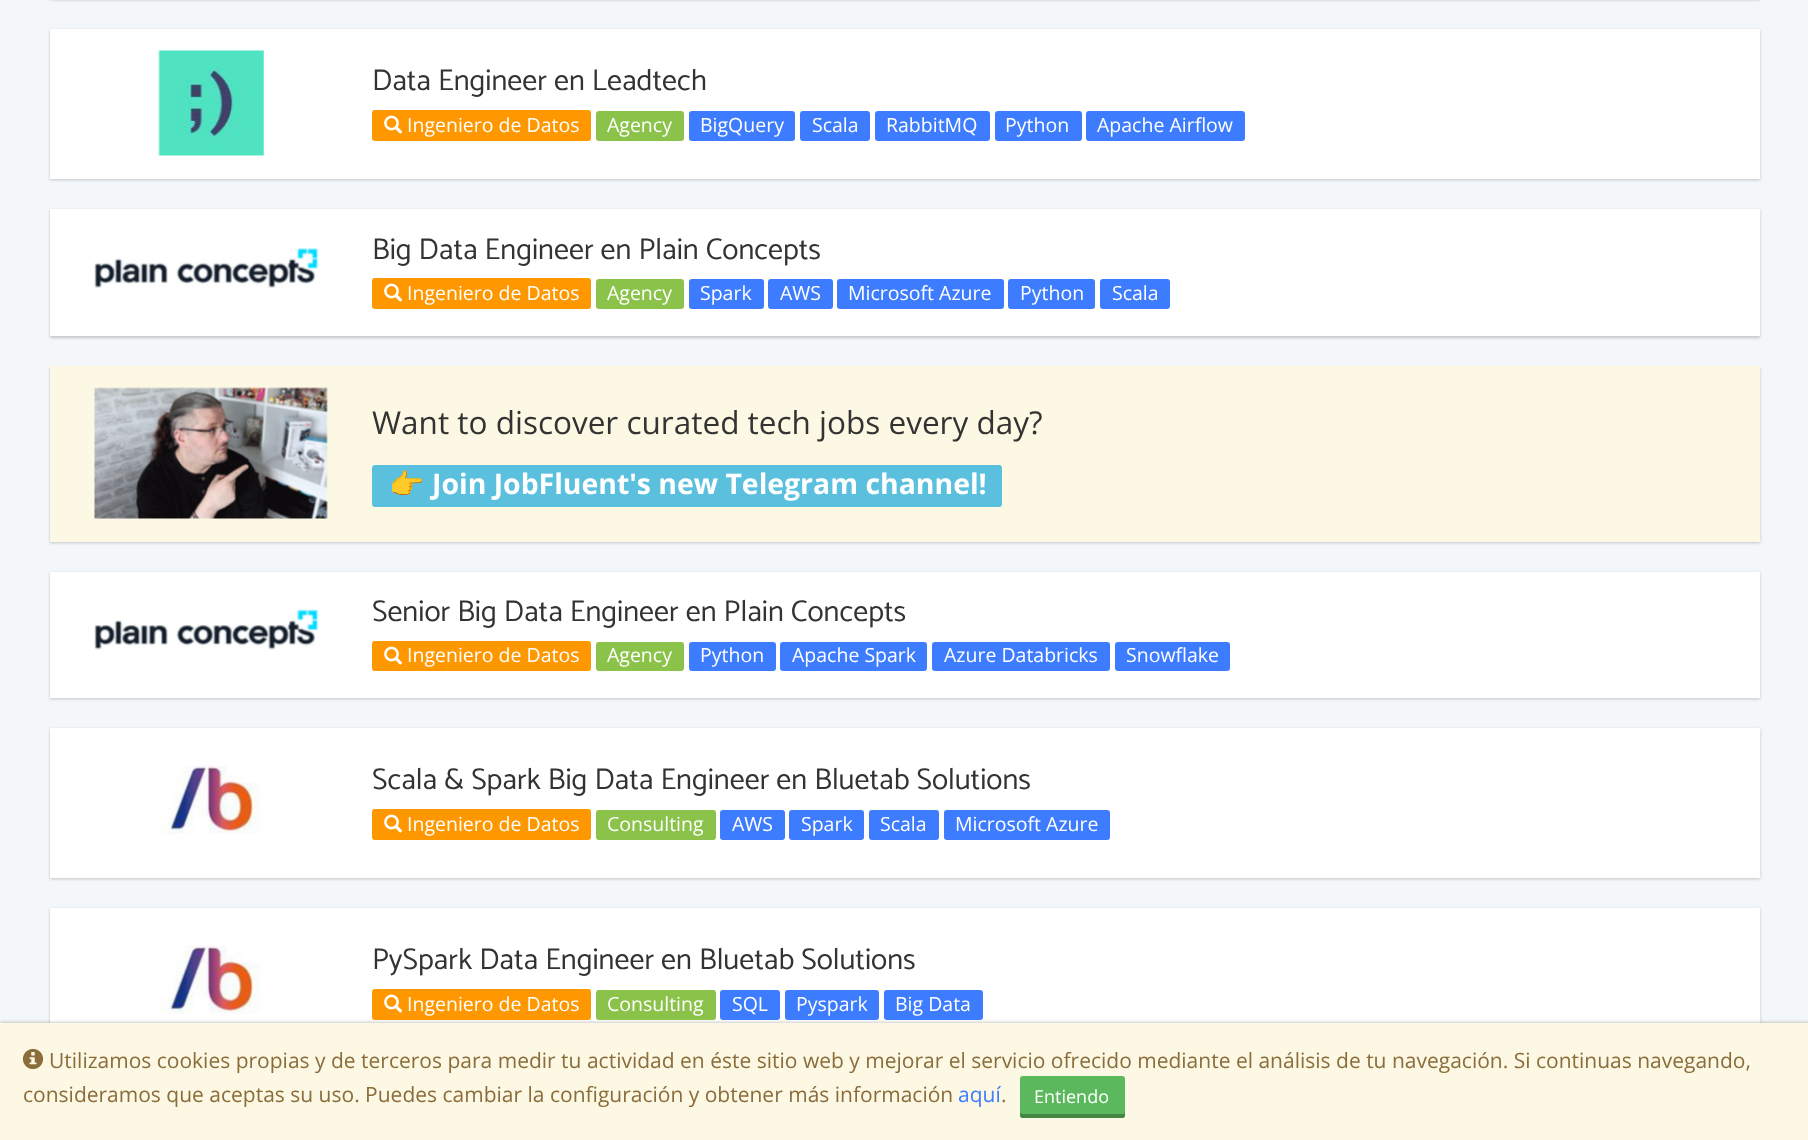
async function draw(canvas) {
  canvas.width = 1808
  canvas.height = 1140
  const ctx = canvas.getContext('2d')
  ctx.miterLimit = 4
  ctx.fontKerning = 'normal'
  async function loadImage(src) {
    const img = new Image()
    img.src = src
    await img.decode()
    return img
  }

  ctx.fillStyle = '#f4f7fa'
  ctx.fillRect(0, 0, 1808, 1140)
  ctx.fillStyle = '#00000033'
  ctx.filter = 'blur(1.5px)'
  ctx.beginPath()
  ctx.rect(50, -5, 1710, 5)
  ctx.fill()
  ctx.filter = 'none'
  ctx.filter = 'blur(1.5px)'
  ctx.beginPath()
  ctx.rect(50, 30, 1710, 150)
  ctx.fill()
  ctx.filter = 'none'
  ctx.fillStyle = '#fff'
  ctx.fillRect(50, 29, 1710, 150)
  ctx.drawImage(await loadImage('image0.png'), 158, 50, 106, 106)
  ctx.font = '30px Catamaran'
  ctx.fillStyle = '#333'
  ctx.fillText('Data Engineer en Leadtech', 372, 90)
  ctx.fillStyle = '#ff9800'
  ctx.beginPath()
  ctx.roundRect(372, 110, 219, 31, 3)
  ctx.fill()
  ctx.drawImage(await loadImage('image1.png'), 384, 115, 19, 19)
  ctx.font = '19.5px Open Sans'
  ctx.fillStyle = '#fff'
  ctx.fillText('Ingeniero de Datos', 407, 132)
  ctx.fillStyle = '#8bc34a'
  ctx.beginPath()
  ctx.roundRect(596, 111, 88, 30, 3)
  ctx.fill()
  ctx.fillStyle = '#fff'
  ctx.fillText('Agency', 607, 132)
  ctx.fillStyle = '#3e7cff'
  ctx.beginPath()
  ctx.roundRect(689, 111, 106, 30, 3)
  ctx.fill()
  ctx.fillStyle = '#fff'
  ctx.fillText('BigQuery', 700, 132)
  ctx.fillStyle = '#3e7cff'
  ctx.beginPath()
  ctx.roundRect(800, 111, 70, 30, 3)
  ctx.fill()
  ctx.fillStyle = '#fff'
  ctx.fillText('Scala', 812, 132)
  ctx.fillStyle = '#3e7cff'
  ctx.beginPath()
  ctx.roundRect(875, 111, 115, 30, 3)
  ctx.fill()
  ctx.fillStyle = '#fff'
  ctx.fillText('RabbitMQ', 886, 132)
  ctx.fillStyle = '#3e7cff'
  ctx.beginPath()
  ctx.roundRect(995, 111, 87, 30, 3)
  ctx.fill()
  ctx.fillStyle = '#fff'
  ctx.fillText('Python', 1005, 132)
  ctx.fillStyle = '#3e7cff'
  ctx.beginPath()
  ctx.roundRect(1086, 111, 159, 30, 3)
  ctx.fill()
  ctx.fillStyle = '#fff'
  ctx.fillText('Apache Airflow', 1097, 132)
  ctx.fillStyle = '#00000033'
  ctx.filter = 'blur(1.5px)'
  ctx.beginPath()
  ctx.rect(50, 210, 1710, 128)
  ctx.fill()
  ctx.filter = 'none'
  ctx.fillStyle = '#fff'
  ctx.fillRect(50, 209, 1710, 127)
  ctx.drawImage(await loadImage('image2.png'), 94, 248, 225, 40)
  ctx.font = '30px Catamaran'
  ctx.fillStyle = '#333'
  ctx.fillText('Big Data Engineer en Plain Concepts', 372, 259)
  ctx.fillStyle = '#ff9800'
  ctx.beginPath()
  ctx.roundRect(372, 278, 219, 31, 3)
  ctx.fill()
  ctx.drawImage(await loadImage('image1.png'), 384, 283, 19, 19)
  ctx.font = '19.5px Open Sans'
  ctx.fillStyle = '#fff'
  ctx.fillText('Ingeniero de Datos', 407, 300)
  ctx.fillStyle = '#8bc34a'
  ctx.beginPath()
  ctx.roundRect(596, 279, 88, 30, 3)
  ctx.fill()
  ctx.fillStyle = '#fff'
  ctx.fillText('Agency', 607, 300)
  ctx.fillStyle = '#3e7cff'
  ctx.beginPath()
  ctx.roundRect(689, 279, 75, 30, 3)
  ctx.fill()
  ctx.fillStyle = '#fff'
  ctx.fillText('Spark', 700, 300)
  ctx.fillStyle = '#3e7cff'
  ctx.beginPath()
  ctx.roundRect(768, 279, 65, 30, 3)
  ctx.fill()
  ctx.fillStyle = '#fff'
  ctx.fillText('AWS', 780, 300)
  ctx.fillStyle = '#3e7cff'
  ctx.beginPath()
  ctx.roundRect(837, 279, 167, 30, 3)
  ctx.fill()
  ctx.fillStyle = '#fff'
  ctx.fillText('Microsoft Azure', 848, 300)
  ctx.fillStyle = '#3e7cff'
  ctx.beginPath()
  ctx.roundRect(1008, 279, 87, 30, 3)
  ctx.fill()
  ctx.fillStyle = '#fff'
  ctx.fillText('Python', 1020, 300)
  ctx.fillStyle = '#3e7cff'
  ctx.beginPath()
  ctx.roundRect(1100, 279, 70, 30, 3)
  ctx.fill()
  ctx.fillStyle = '#fff'
  ctx.fillText('Scala', 1112, 300)
  ctx.fillStyle = '#00000033'
  ctx.filter = 'blur(1.5px)'
  ctx.beginPath()
  ctx.rect(50, 368, 1710, 175)
  ctx.fill()
  ctx.filter = 'none'
  ctx.fillStyle = '#fcf8e3'
  ctx.fillRect(50, 366, 1710, 176)
  ctx.drawImage(await loadImage('image3.png'), 94, 387, 234, 132)
  ctx.font = '31.5px Open Sans'
  ctx.fillStyle = '#333'
  ctx.fillText('Want to discover curated tech jobs every day?', 372, 434)
  ctx.fillStyle = '#5bc0de'
  ctx.beginPath()
  ctx.roundRect(372, 465, 630, 42, 3)
  ctx.fill()
  ctx.font = 'bold 28.4px Noto Color Emoji'
  ctx.fillStyle = '#fff'
  ctx.fillText('👉', 389, 494)
  ctx.font = 'bold 28.4px Open Sans'
  ctx.fillText('Join JobFluent\'s new Telegram channel!', 432, 494)
  ctx.fillStyle = '#00000033'
  ctx.filter = 'blur(1.5px)'
  ctx.beginPath()
  ctx.rect(50, 573, 1710, 126)
  ctx.fill()
  ctx.filter = 'none'
  ctx.fillStyle = '#fff'
  ctx.fillRect(50, 572, 1710, 126)
  ctx.drawImage(await loadImage('image4.png'), 94, 609, 225, 41)
  ctx.font = '30px Catamaran'
  ctx.fillStyle = '#333'
  ctx.fillText('Senior Big Data Engineer en Plain Concepts', 372, 621)
  ctx.fillStyle = '#ff9800'
  ctx.beginPath()
  ctx.roundRect(372, 641, 219, 30, 3)
  ctx.fill()
  ctx.drawImage(await loadImage('image1.png'), 384, 646, 19, 19)
  ctx.font = '19.5px Open Sans'
  ctx.fillStyle = '#fff'
  ctx.fillText('Ingeniero de Datos', 407, 662)
  ctx.fillStyle = '#8bc34a'
  ctx.beginPath()
  ctx.roundRect(596, 642, 88, 29, 3)
  ctx.fill()
  ctx.fillStyle = '#fff'
  ctx.fillText('Agency', 607, 662)
  ctx.fillStyle = '#3e7cff'
  ctx.beginPath()
  ctx.roundRect(689, 642, 87, 29, 3)
  ctx.fill()
  ctx.fillStyle = '#fff'
  ctx.fillText('Python', 700, 662)
  ctx.fillStyle = '#3e7cff'
  ctx.beginPath()
  ctx.roundRect(780, 642, 147, 29, 3)
  ctx.fill()
  ctx.fillStyle = '#fff'
  ctx.fillText('Apache Spark', 792, 662)
  ctx.fillStyle = '#3e7cff'
  ctx.beginPath()
  ctx.roundRect(932, 642, 178, 29, 3)
  ctx.fill()
  ctx.fillStyle = '#fff'
  ctx.fillText('Azure Databricks', 944, 662)
  ctx.fillStyle = '#3e7cff'
  ctx.beginPath()
  ctx.roundRect(1115, 642, 115, 29, 3)
  ctx.fill()
  ctx.fillStyle = '#fff'
  ctx.fillText('Snowflake', 1126, 662)
  ctx.fillStyle = '#00000033'
  ctx.filter = 'blur(1.5px)'
  ctx.beginPath()
  ctx.rect(50, 729, 1710, 150)
  ctx.fill()
  ctx.filter = 'none'
  ctx.fillStyle = '#fff'
  ctx.fillRect(50, 728, 1710, 150)
  ctx.drawImage(await loadImage('image5.png'), 159, 765, 102, 69)
  ctx.font = '30px Catamaran'
  ctx.fillStyle = '#333'
  ctx.fillText('Scala & Spark Big Data Engineer en Bluetab Solutions', 372, 789)
  ctx.fillStyle = '#ff9800'
  ctx.beginPath()
  ctx.roundRect(372, 809, 219, 31, 3)
  ctx.fill()
  ctx.drawImage(await loadImage('image1.png'), 384, 814, 19, 19)
  ctx.font = '19.5px Open Sans'
  ctx.fillStyle = '#fff'
  ctx.fillText('Ingeniero de Datos', 407, 831)
  ctx.fillStyle = '#8bc34a'
  ctx.beginPath()
  ctx.roundRect(596, 810, 120, 30, 3)
  ctx.fill()
  ctx.fillStyle = '#fff'
  ctx.fillText('Consulting', 607, 831)
  ctx.fillStyle = '#3e7cff'
  ctx.beginPath()
  ctx.roundRect(720, 810, 65, 30, 3)
  ctx.fill()
  ctx.fillStyle = '#fff'
  ctx.fillText('AWS', 732, 831)
  ctx.fillStyle = '#3e7cff'
  ctx.beginPath()
  ctx.roundRect(789, 810, 75, 30, 3)
  ctx.fill()
  ctx.fillStyle = '#fff'
  ctx.fillText('Spark', 801, 831)
  ctx.fillStyle = '#3e7cff'
  ctx.beginPath()
  ctx.roundRect(869, 810, 70, 30, 3)
  ctx.fill()
  ctx.fillStyle = '#fff'
  ctx.fillText('Scala', 880, 831)
  ctx.fillStyle = '#3e7cff'
  ctx.beginPath()
  ctx.roundRect(944, 810, 166, 30, 3)
  ctx.fill()
  ctx.fillStyle = '#fff'
  ctx.fillText('Microsoft Azure', 955, 831)
  ctx.fillStyle = '#00000033'
  ctx.filter = 'blur(1.5px)'
  ctx.beginPath()
  ctx.rect(50, 909, 1710, 150)
  ctx.fill()
  ctx.filter = 'none'
  ctx.fillStyle = '#fff'
  ctx.fillRect(50, 908, 1710, 115)
  ctx.drawImage(await loadImage('image5.png'), 159, 945, 102, 69)
  ctx.font = '30px Catamaran'
  ctx.fillStyle = '#333'
  ctx.fillText('PySpark Data Engineer en Bluetab Solutions', 372, 969)
  ctx.fillStyle = '#ff9800'
  ctx.beginPath()
  ctx.roundRect(372, 989, 219, 31, 3)
  ctx.fill()
  ctx.drawImage(await loadImage('image1.png'), 384, 994, 19, 19)
  ctx.font = '19.5px Open Sans'
  ctx.fillStyle = '#fff'
  ctx.fillText('Ingeniero de Datos', 407, 1011)
  ctx.fillStyle = '#8bc34a'
  ctx.beginPath()
  ctx.roundRect(596, 990, 120, 30, 3)
  ctx.fill()
  ctx.fillStyle = '#fff'
  ctx.fillText('Consulting', 607, 1011)
  ctx.fillStyle = '#3e7cff'
  ctx.beginPath()
  ctx.roundRect(720, 990, 60, 30, 3)
  ctx.fill()
  ctx.fillStyle = '#fff'
  ctx.fillText('SQL', 732, 1011)
  ctx.fillStyle = '#3e7cff'
  ctx.beginPath()
  ctx.roundRect(785, 990, 94, 30, 3)
  ctx.fill()
  ctx.fillStyle = '#fff'
  ctx.fillText('Pyspark', 796, 1011)
  ctx.fillStyle = '#3e7cff'
  ctx.beginPath()
  ctx.roundRect(884, 990, 99, 30, 3)
  ctx.fill()
  ctx.fillStyle = '#fff'
  ctx.fillText('Big Data', 895, 1011)
  ctx.fillStyle = '#00000033'
  ctx.filter = 'blur(1.5px)'
  ctx.beginPath()
  ctx.rect(0, 1022, 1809, 117)
  ctx.fill()
  ctx.filter = 'none'
  ctx.fillStyle = '#fcf8e3'
  ctx.fillRect(0, 1023, 1808, 117)
  ctx.drawImage(await loadImage('image6.png'), 22, 1048, 22, 22)
  ctx.font = '21px Open Sans'
  ctx.fillStyle = '#8a6d3b'
  ctx.fillText('Utilizamos cookies propias y de terceros para medir tu actividad en éste sitio web y mejorar el servicio ofrecido mediante el análisis de tu navegación. Si continuas navegando,', 49, 1068)
  ctx.fillText('consideramos que aceptas su uso. Puedes cambiar la configuración y obtener más información', 23, 1102)
  ctx.fillStyle = '#3f7cff'
  ctx.fillText('aquí', 958, 1102)
  ctx.fillStyle = '#8a6d3b'
  ctx.fillText('.', 1001, 1102)
  ctx.fillStyle = '#5cb85c'
  ctx.beginPath()
  ctx.roundRect(1020, 1076, 105, 42, 3)
  ctx.fill()
  ctx.fillStyle = '#438743'
  ctx.beginPath()
  ctx.moveTo(1020, 1112)
  ctx.lineTo(1020, 1115)
  ctx.bezierCurveTo(1020, 1117, 1021, 1118, 1023, 1118)
  ctx.lineTo(1122, 1118)
  ctx.bezierCurveTo(1124, 1118, 1125, 1117, 1125, 1115)
  ctx.lineTo(1125, 1112)
  ctx.bezierCurveTo(1125, 1113, 1124, 1114, 1122, 1114)
  ctx.lineTo(1023, 1114)
  ctx.bezierCurveTo(1021, 1114, 1020, 1113, 1020, 1112)
  ctx.closePath()
  ctx.fill()
  ctx.font = '18px Open Sans'
  ctx.fillStyle = '#fff'
  ctx.fillText('Entiendo', 1034, 1103)
}

draw(document.querySelector('canvas'))
